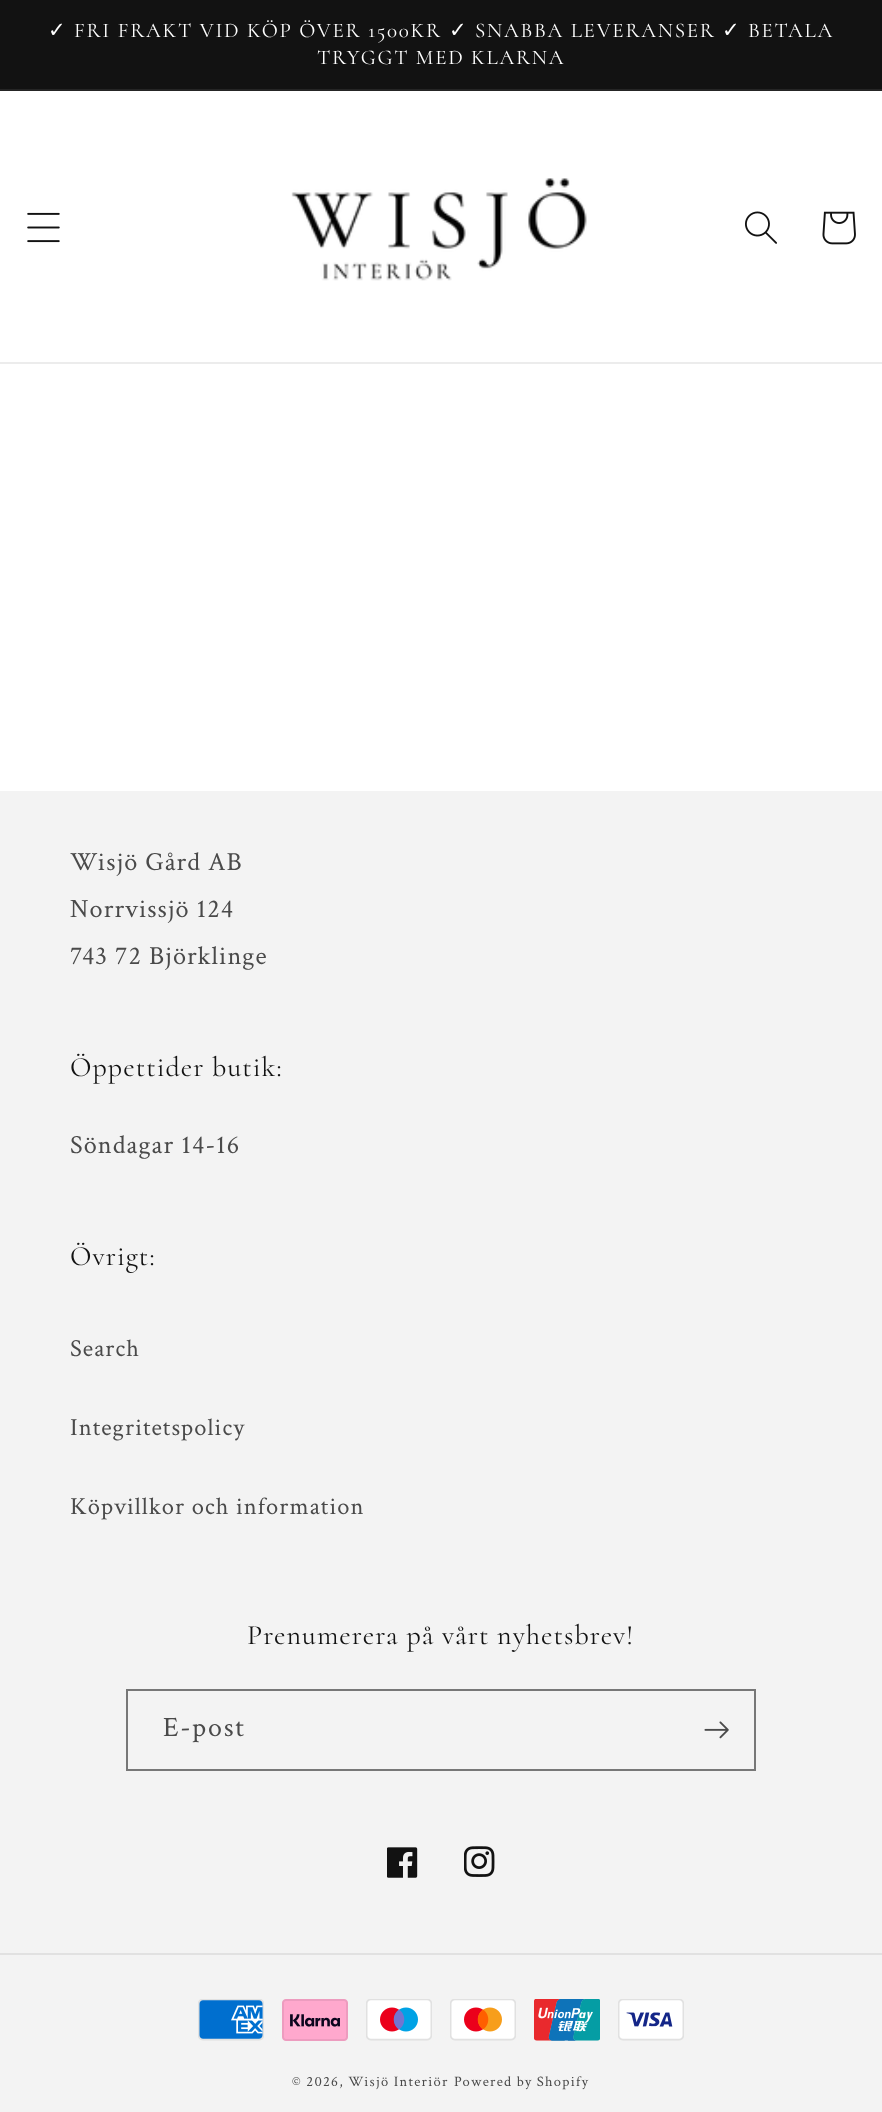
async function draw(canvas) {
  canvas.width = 882
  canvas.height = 2112
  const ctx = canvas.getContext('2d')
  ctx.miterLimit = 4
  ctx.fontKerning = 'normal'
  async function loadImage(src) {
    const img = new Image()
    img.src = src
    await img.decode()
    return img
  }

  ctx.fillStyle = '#fff'
  ctx.fillRect(0, 0, 882, 2112)
  ctx.fillStyle = '#121212'
  ctx.fillRect(0, 0, 882, 89)
  ctx.fillStyle = '#252525'
  ctx.fillRect(0, 89, 882, 2)
  ctx.letterSpacing = '1.75px'
  ctx.font = '21px DejaVu Sans'
  ctx.fillStyle = '#fff'
  ctx.fillText('✓', 48, 37)
  ctx.font = '21px Cormorant'
  ctx.fillText('FRI FRAKT VID KÖP ÖVER 1500KR', 74, 37)
  ctx.font = '21px DejaVu Sans'
  ctx.fillText('✓', 449, 37)
  ctx.font = '21px Cormorant'
  ctx.fillText('SNABBA LEVERANSER', 475, 37)
  ctx.font = '21px DejaVu Sans'
  ctx.fillText('✓', 722, 37)
  ctx.font = '21px Cormorant'
  ctx.fillText('BETALA', 748, 37)
  ctx.fillText('TRYGGT MED KLARNA', 317, 64)
  ctx.fillStyle = '#ececec'
  ctx.fillRect(0, 362, 882, 2)
  ctx.drawImage(await loadImage('image0.png'), 27, 212, 33, 31)
  ctx.drawImage(await loadImage('image1.png'), 291, 178, 296, 103)
  ctx.drawImage(await loadImage('image2.png'), 745, 211, 32, 33)
  ctx.drawImage(await loadImage('image3.png'), 822, 211, 34, 34)
  ctx.fillStyle = '#f3f3f3'
  ctx.fillRect(0, 791, 882, 1321)
  ctx.letterSpacing = '1.05px'
  ctx.font = '26.25px Crimson Text'
  ctx.fillStyle = '#4a4a4a'
  ctx.fillText('Wisjö Gård AB', 70, 870)
  ctx.fillText('Norrvissjö 124', 70, 917)
  ctx.fillText('743 72 Björklinge', 70, 964)
  ctx.font = '28px Cormorant'
  ctx.fillStyle = '#121212'
  ctx.fillText('Öppettider butik:', 70, 1076)
  ctx.font = '26.25px Crimson Text'
  ctx.fillStyle = '#4a4a4a'
  ctx.fillText('Söndagar 14-16', 70, 1153)
  ctx.font = '28px Cormorant'
  ctx.fillStyle = '#121212'
  ctx.fillText('Övrigt:', 70, 1265)
  ctx.font = '24.5px Crimson Text'
  ctx.fillStyle = '#4a4a4a'
  ctx.fillText('Search', 70, 1356)
  ctx.fillText('Integritetspolicy', 70, 1435)
  ctx.fillText('Köpvillkor och information', 70, 1514)
  ctx.font = '28px Cormorant'
  ctx.fillStyle = '#121212'
  ctx.fillText('Prenumerera på vårt nyhetsbrev!', 247, 1644)
  ctx.strokeStyle = '#777'
  ctx.lineWidth = 2
  ctx.strokeRect(127, 1690, 628, 80)
  ctx.letterSpacing = '1.75px'
  ctx.font = '28px Crimson Text'
  ctx.fillStyle = '#4a4a4a'
  ctx.fillText('E-post', 163, 1736)
  ctx.drawImage(await loadImage('image4.png'), 704, 1721, 25, 18)
  ctx.drawImage(await loadImage('image5.png'), 387, 1847, 31, 31)
  ctx.drawImage(await loadImage('image6.png'), 464, 1846, 31, 31)
  ctx.fillStyle = '#e1e1e1'
  ctx.fillRect(0, 1953, 882, 2)
  ctx.drawImage(await loadImage('image7.png'), 198, 1999, 66, 42)
  ctx.drawImage(await loadImage('image8.png'), 282, 1999, 66, 42)
  ctx.drawImage(await loadImage('image9.png'), 366, 1999, 66, 42)
  ctx.drawImage(await loadImage('image10.png'), 450, 1999, 66, 42)
  ctx.drawImage(await loadImage('image11.png'), 534, 1999, 66, 42)
  ctx.drawImage(await loadImage('image12.png'), 618, 1999, 66, 42)
  ctx.letterSpacing = '1.25px'
  ctx.font = '14.5px Crimson Text'
  ctx.fillStyle = '#4a4a4a'
  ctx.fillText('© 2026, Wisjö Interiör', 292, 2086)
  ctx.fillText('Powered by Shopify', 454, 2086)
}

draw(document.querySelector('canvas'))
